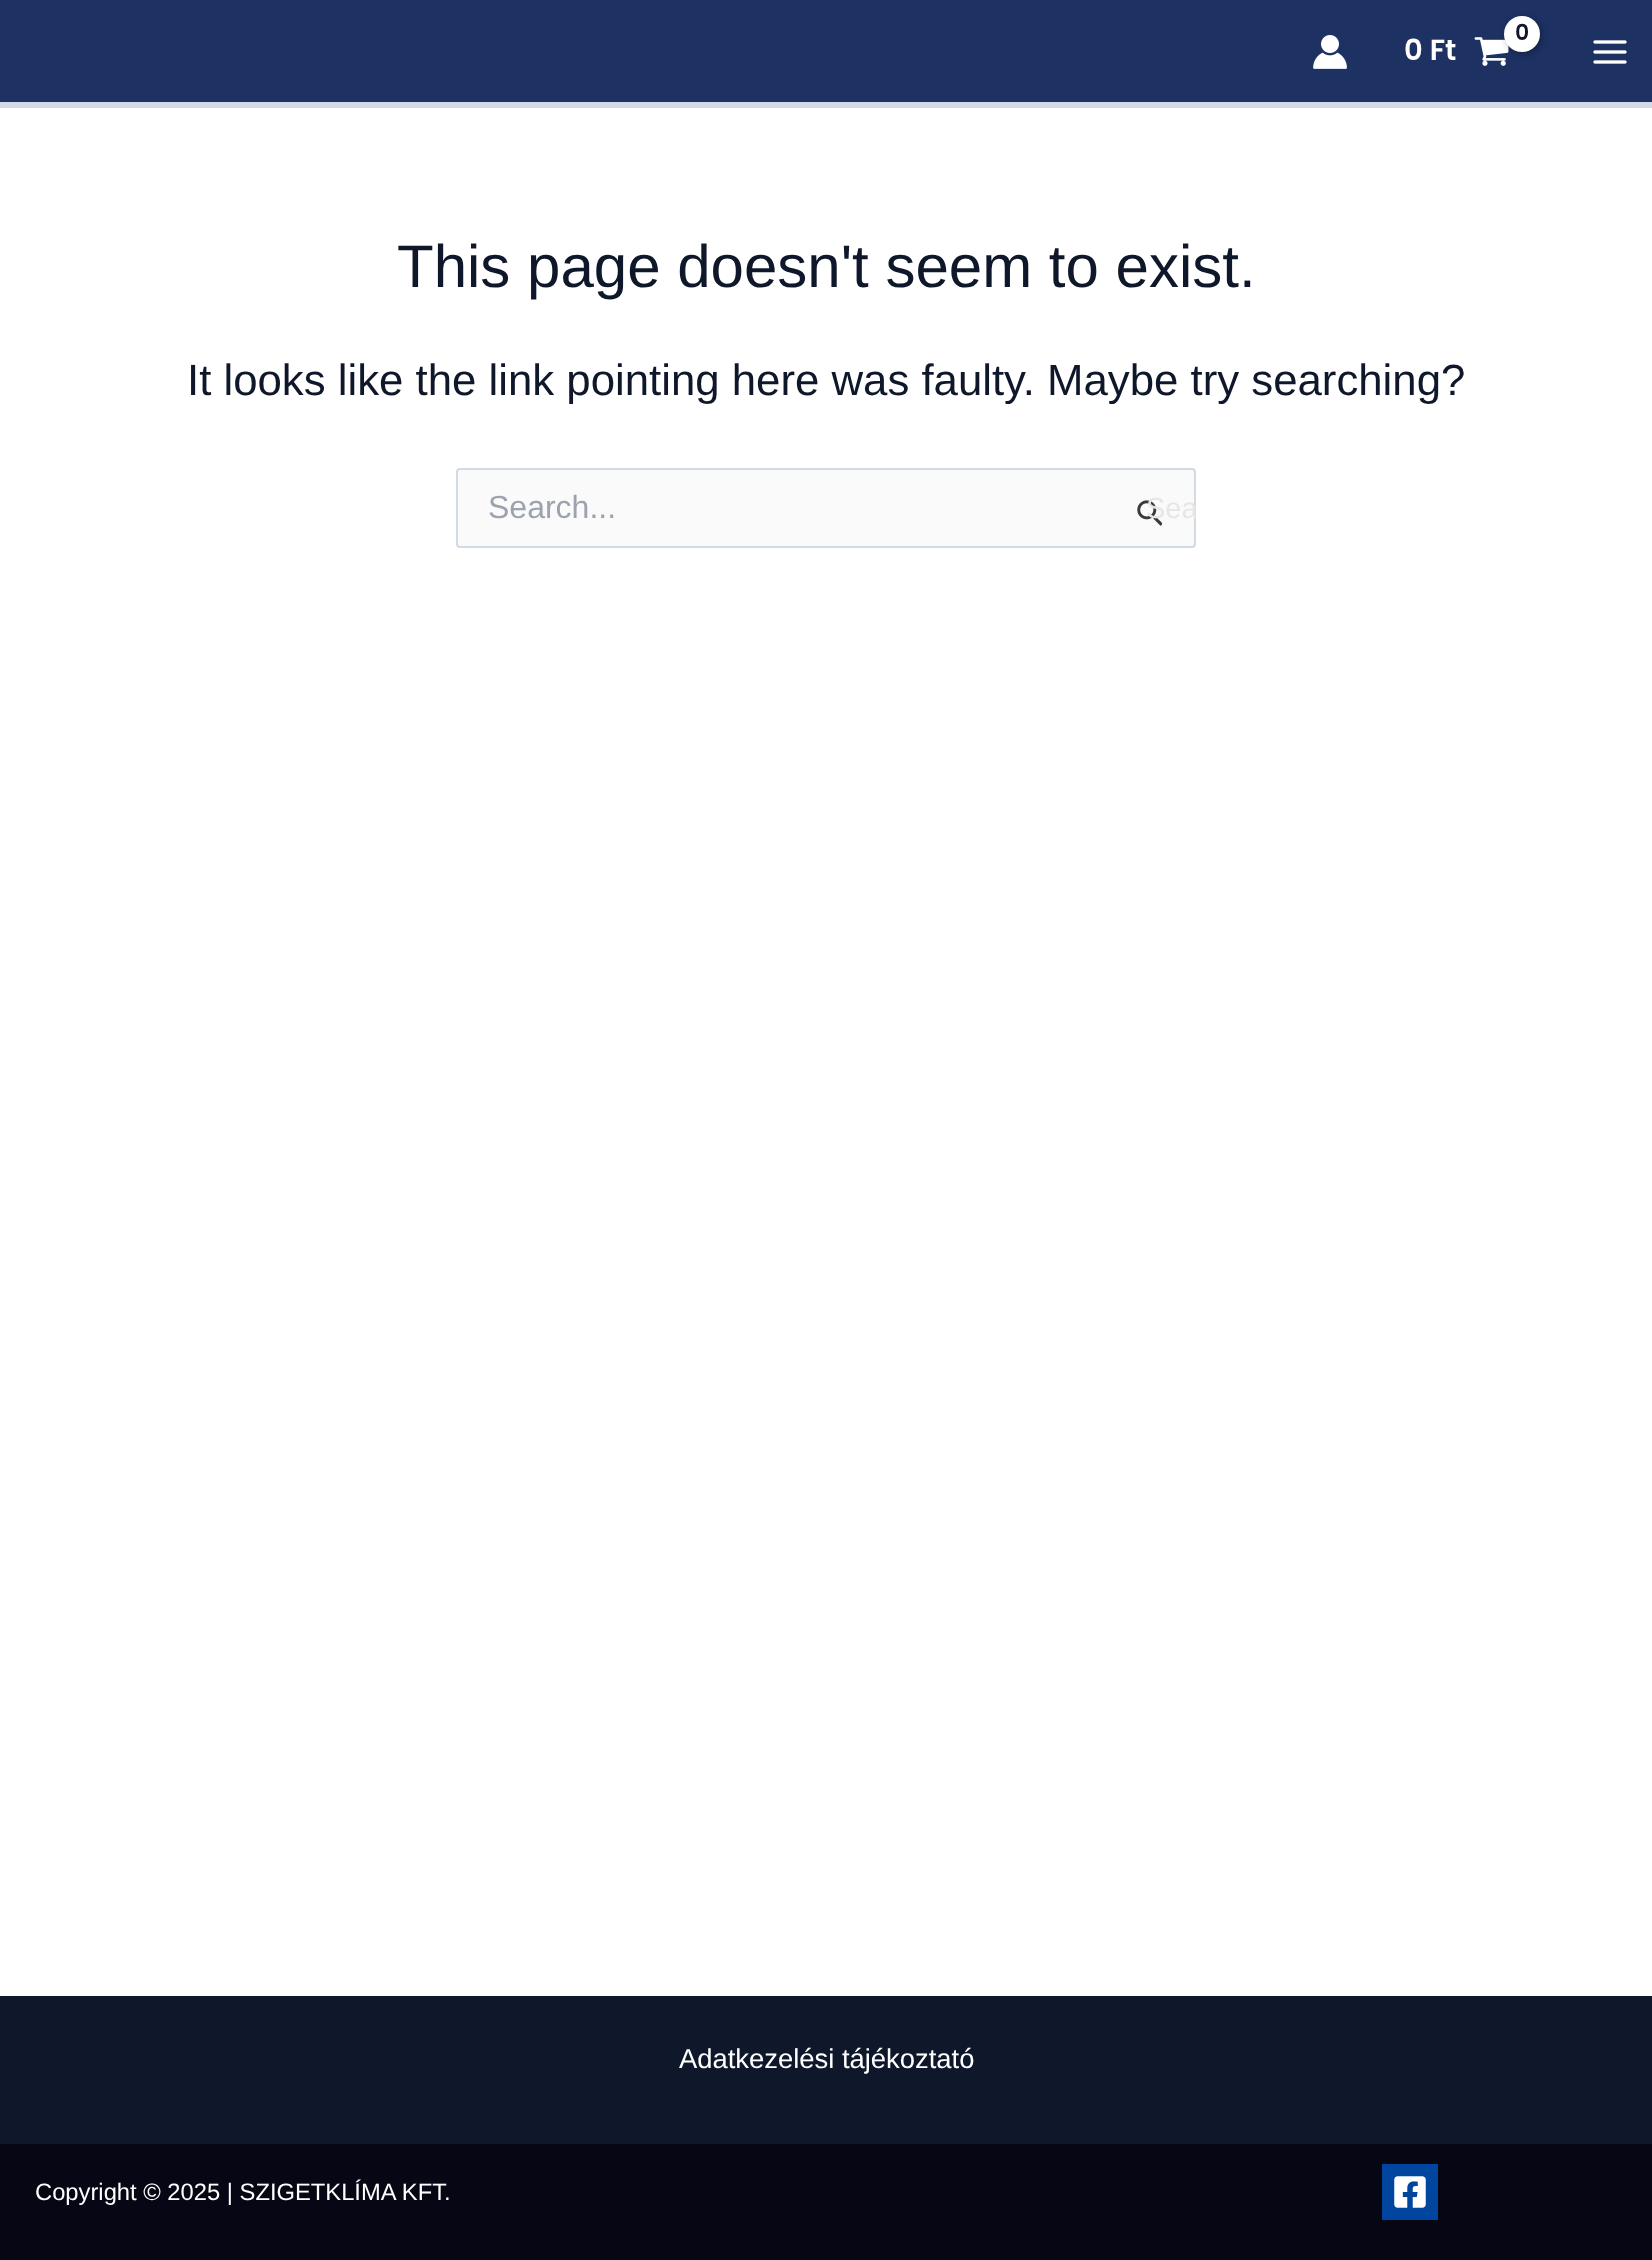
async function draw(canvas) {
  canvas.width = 1652
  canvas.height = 2260
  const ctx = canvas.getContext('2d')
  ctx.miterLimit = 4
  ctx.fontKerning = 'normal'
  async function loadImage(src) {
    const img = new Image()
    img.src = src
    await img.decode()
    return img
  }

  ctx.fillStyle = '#fff'
  ctx.fillRect(0, 0, 1652, 2260)
  ctx.fillStyle = '#1d3162'
  ctx.fillRect(0, 0, 1652, 102)
  ctx.fillStyle = '#d1dae5'
  ctx.fillRect(0, 102, 1652, 6)
  ctx.drawImage(await loadImage('image0.png'), 1313, 35, 34, 34)
  ctx.drawImage(await loadImage('image1.png'), 1474, 37, 35, 29)
  ctx.fillStyle = '#0000004d'
  ctx.filter = 'blur(3px)'
  ctx.beginPath()
  ctx.roundRect(1506, 18, 36, 36, 18)
  ctx.fill()
  ctx.filter = 'none'
  ctx.fillStyle = '#fff'
  ctx.beginPath()
  ctx.arc(1522, 34, 18, 0, 2 * Math.PI)
  ctx.fill()
  ctx.letterSpacing = '-1px'
  ctx.font = '600 22px Poppins'
  ctx.fillStyle = '#0f172a'
  ctx.fillText('0', 1515, 40)
  ctx.letterSpacing = '0px'
  ctx.font = '600 29px Poppins'
  ctx.fillStyle = '#fff'
  ctx.fillText('0 Ft', 1404, 60)
  ctx.drawImage(await loadImage('image2.png'), 1593, 40, 34, 24)
  ctx.font = '60px Liberation Sans'
  ctx.fillStyle = '#0f172a'
  ctx.fillText('This page doesn\'t seem to exist.', 397, 287)
  ctx.font = '43.75px Liberation Sans'
  ctx.fillText('It looks like the link pointing here was faulty. Maybe try searching?', 187, 395)
  ctx.fillStyle = '#fafafa'
  ctx.beginPath()
  ctx.roundRect(457, 469, 738, 78, 3)
  ctx.fill()
  ctx.strokeStyle = '#d1dae5'
  ctx.lineWidth = 2
  ctx.stroke()
  ctx.font = '32px Liberation Sans'
  ctx.fillStyle = '#9ca3af'
  ctx.fillText('Search...', 488, 518)
  ctx.drawImage(await loadImage('image3.png'), 1137, 500, 25, 26)
  ctx.save()
  ctx.beginPath()
  ctx.roundRect(1106, 468, 90, 80, 4)
  ctx.clip()
  ctx.font = '29px Liberation Sans'
  ctx.fillStyle = '#e6e6e7'
  ctx.fillText('Sea', 1146, 518)
  ctx.restore()
  ctx.fillStyle = '#0f172a'
  ctx.fillRect(0, 1996, 1652, 148)
  ctx.font = '27.4px Liberation Sans'
  ctx.fillStyle = '#fff'
  ctx.fillText('Adatkezelési tájékoztató', 679, 2068)
  ctx.fillStyle = '#070614'
  ctx.fillRect(0, 2144, 1652, 116)
  ctx.font = '23.75px Liberation Sans'
  ctx.fillStyle = '#fff'
  ctx.fillText('Copyright © 2025 | SZIGETKLÍMA KFT.', 35, 2200)
  ctx.fillStyle = '#00459e'
  ctx.fillRect(1382, 2164, 56, 56)
  ctx.drawImage(await loadImage('image4.png'), 1394, 2176, 32, 32)
}

draw(document.querySelector('canvas'))
